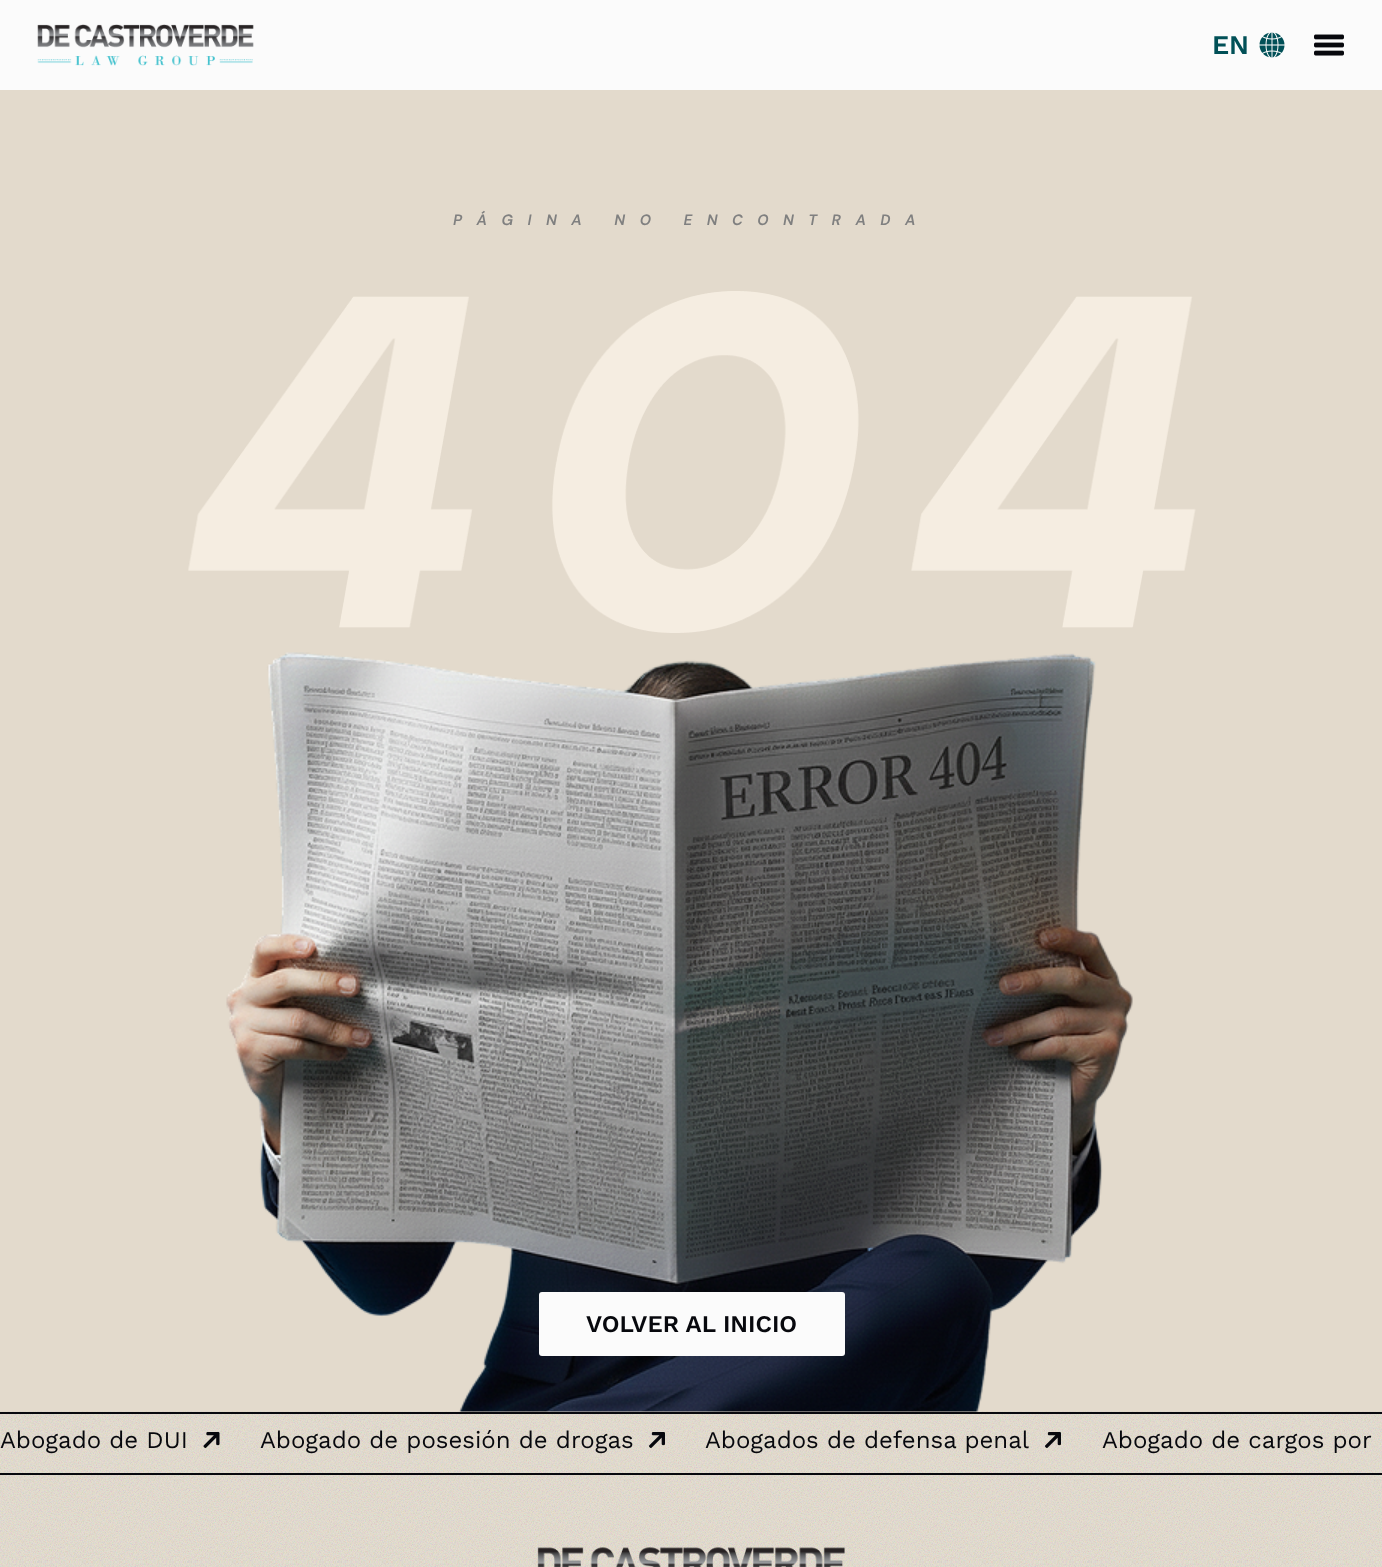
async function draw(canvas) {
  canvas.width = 1382
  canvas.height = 1567
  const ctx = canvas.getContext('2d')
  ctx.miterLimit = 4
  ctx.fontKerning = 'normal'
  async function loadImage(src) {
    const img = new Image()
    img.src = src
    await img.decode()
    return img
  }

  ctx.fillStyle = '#e3dacc'
  ctx.fillRect(0, 0, 1382, 1567)
  ctx.fillStyle = '#fbfbfb'
  ctx.fillRect(0, 0, 1382, 90)
  ctx.drawImage(await loadImage('image0.png'), 37, 24, 217, 42)
  ctx.font = '600 27px Work Sans'
  ctx.fillStyle = '#015057'
  ctx.fillText('EN', 1212, 54)
  ctx.drawImage(await loadImage('image1.png'), 1259, 32, 26, 26)
  ctx.drawImage(await loadImage('image2.png'), 1314, 34, 30, 22)
  ctx.letterSpacing = '14.4px'
  ctx.font = 'italic 600 15px DM Sans'
  ctx.fillStyle = '#808080'
  ctx.fillText('PÁGINA NO ENCONTRADA', 453, 225)
  ctx.drawImage(await loadImage('image3.png'), 188, 291, 1008, 342)
  ctx.fillStyle = '#e9e0d1'
  ctx.fillRect(0, 1414, 1382, 153)
  ctx.drawImage(await loadImage('image5.png'), 0, 1411, 1382, 156)
  ctx.drawImage(await loadImage('image4.png'), 226, 652, 907, 760)
  ctx.fillStyle = '#fbfbfb'
  ctx.beginPath()
  ctx.roundRect(539, 1292, 306, 64, 3)
  ctx.fill()
  ctx.letterSpacing = '0px'
  ctx.font = '600 24px Work Sans'
  ctx.fillStyle = '#07080d'
  ctx.fillText('VOLVER AL INICIO', 586, 1332)
  ctx.fillRect(0, 1412, 1382, 2)
  ctx.fillRect(0, 1473, 1382, 2)
  ctx.font = '24px Work Sans'
  ctx.fillText('Abogado de DUI', 0, 1448)
  ctx.drawImage(await loadImage('image6.png'), 203, 1432, 17, 16)
  ctx.fillText('Abogado de posesión de drogas', 260, 1448)
  ctx.drawImage(await loadImage('image7.png'), 649, 1432, 16, 16)
  ctx.fillText('Abogados de defensa penal', 705, 1448)
  ctx.drawImage(await loadImage('image8.png'), 1045, 1432, 16, 16)
  ctx.fillText('Abogado de cargos por', 1102, 1448)
  ctx.drawImage(await loadImage('image9.png'), 537, 1547, 308, 20)
}

draw(document.querySelector('canvas'))
